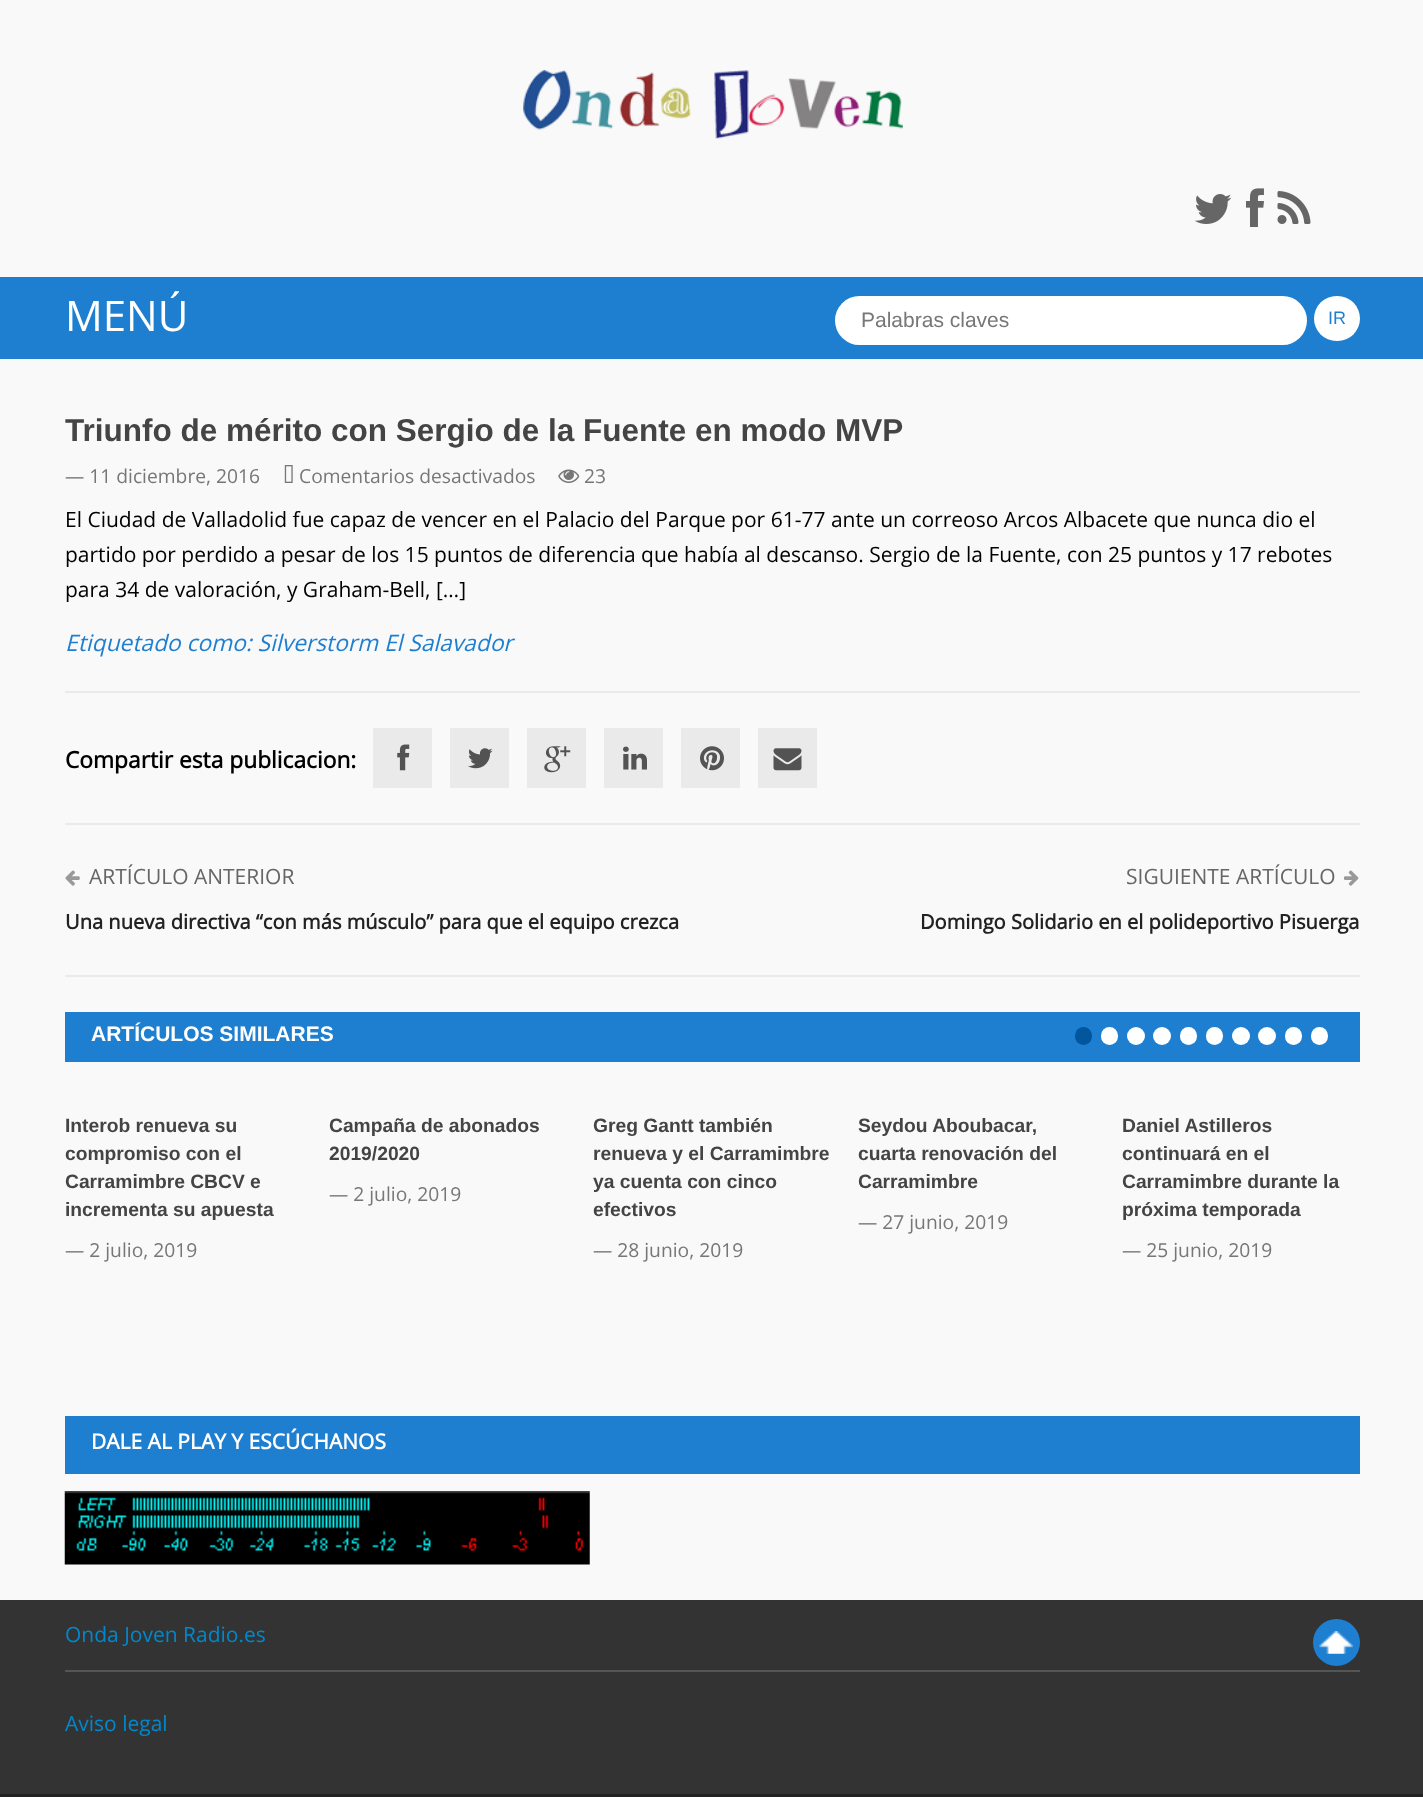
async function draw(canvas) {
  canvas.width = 1423
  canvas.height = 1797
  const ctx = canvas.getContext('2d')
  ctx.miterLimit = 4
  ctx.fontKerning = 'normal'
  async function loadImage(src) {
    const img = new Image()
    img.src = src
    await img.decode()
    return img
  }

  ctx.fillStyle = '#f9f9f9'
  ctx.fillRect(0, 0, 1423, 1797)
  ctx.drawImage(await loadImage('image0.png'), 523, 70, 380, 69)
  ctx.drawImage(await loadImage('image1.png'), 1194, 194, 38, 30)
  ctx.drawImage(await loadImage('image2.png'), 1246, 188, 18, 39)
  ctx.drawImage(await loadImage('image3.png'), 1277, 191, 34, 33)
  ctx.fillStyle = '#1e7fd1'
  ctx.fillRect(0, 277, 1423, 82)
  ctx.font = '42px Open Sans'
  ctx.fillStyle = '#fff'
  ctx.fillText('MENÚ', 65, 331)
  ctx.beginPath()
  ctx.roundRect(835, 296, 472, 49, 24.5)
  ctx.fill()
  ctx.font = '21px Liberation Sans'
  ctx.fillStyle = '#777'
  ctx.fillText('Palabras claves', 861, 327)
  ctx.fillStyle = '#fff'
  ctx.beginPath()
  ctx.roundRect(1314, 296, 46, 45, 22.5)
  ctx.fill()
  ctx.font = '18px Liberation Sans'
  ctx.fillStyle = '#1e7fd1'
  ctx.fillText('IR', 1328, 324)
  ctx.font = 'bold 31.5px Liberation Sans'
  ctx.fillStyle = '#444'
  ctx.fillText('Triunfo de mérito con Sergio de la Fuente en modo MVP', 65, 441)
  ctx.font = '19.25px Open Sans'
  ctx.fillStyle = '#777'
  ctx.fillText('— 11 diciembre, 2016', 65, 483)
  ctx.drawImage(await loadImage('image4.png'), 284, 465, 9, 18)
  ctx.fillText('Comentarios desactivados', 299, 483)
  ctx.drawImage(await loadImage('image5.png'), 558, 469, 22, 14)
  ctx.fillText('23', 584, 483)
  ctx.font = '21px Open Sans'
  ctx.fillStyle = '#000'
  ctx.fillText('El Ciudad de Valladolid fue capaz de vencer en el Palacio del Parque por 61-77 ante un correoso Arcos Albacete que nunca dio el', 65, 527)
  ctx.fillText('partido por perdido a pesar de los 15 puntos de diferencia que había al descanso. Sergio de la Fuente, con 25 puntos y 17 rebotes', 65, 562)
  ctx.fillText('para 34 de valoración, y Graham-Bell, […]', 65, 597)
  ctx.fillStyle = '#eaeaea'
  ctx.fillRect(65, 691, 1295, 2)
  ctx.font = 'italic 22.75px Open Sans'
  ctx.fillStyle = '#1e7fd1'
  ctx.fillText('Etiquetado como: Silverstorm El Salavador', 65, 651)
  ctx.fillStyle = '#eaeaea'
  ctx.fillRect(65, 823, 1295, 2)
  ctx.font = 'bold 22.75px Open Sans'
  ctx.fillStyle = '#000'
  ctx.fillText('Compartir esta publicacion:', 65, 768)
  ctx.fillStyle = '#eaeaea'
  ctx.fillRect(373, 728, 59, 60)
  ctx.drawImage(await loadImage('image6.png'), 397, 744, 13, 27)
  ctx.fillRect(450, 728, 59, 60)
  ctx.drawImage(await loadImage('image7.png'), 468, 748, 25, 21)
  ctx.fillRect(527, 728, 59, 60)
  ctx.drawImage(await loadImage('image8.png'), 544, 746, 27, 27)
  ctx.fillRect(604, 728, 59, 60)
  ctx.drawImage(await loadImage('image9.png'), 623, 746, 24, 24)
  ctx.fillRect(681, 728, 59, 60)
  ctx.drawImage(await loadImage('image10.png'), 700, 746, 24, 25)
  ctx.fillRect(758, 728, 59, 60)
  ctx.drawImage(await loadImage('image11.png'), 773, 748, 29, 23)
  ctx.fillRect(65, 975, 1295, 2)
  ctx.drawImage(await loadImage('image12.png'), 65, 870, 15, 16)
  ctx.font = '21px Open Sans'
  ctx.fillStyle = '#666'
  ctx.fillText('ARTÍCULO ANTERIOR', 89, 884)
  ctx.font = 'bold 20.1px Open Sans'
  ctx.fillStyle = '#222'
  ctx.fillText('Una nueva directiva “con más músculo” para que el equipo crezca', 65, 929)
  ctx.font = '21px Open Sans'
  ctx.fillStyle = '#666'
  ctx.fillText('SIGUIENTE ARTÍCULO', 1126, 884)
  ctx.drawImage(await loadImage('image13.png'), 1344, 870, 15, 16)
  ctx.font = 'bold 20.1px Open Sans'
  ctx.fillStyle = '#222'
  ctx.fillText('Domingo Solidario en el polideportivo Pisuerga', 920, 929)
  ctx.fillStyle = '#1e7fd1'
  ctx.fillRect(65, 1012, 1295, 50)
  ctx.font = 'bold 21px Liberation Sans'
  ctx.fillStyle = '#fff'
  ctx.fillText('ARTÍCULOS SIMILARES', 91, 1041)
  ctx.fillStyle = '#02569e'
  ctx.beginPath()
  ctx.roundRect(1075, 1027, 17, 18, 8.5)
  ctx.fill()
  ctx.fillStyle = '#fff'
  ctx.beginPath()
  ctx.roundRect(1101, 1027, 17, 18, 8.5)
  ctx.fill()
  ctx.beginPath()
  ctx.arc(1136, 1036, 9, 0, 2 * Math.PI)
  ctx.fill()
  ctx.beginPath()
  ctx.arc(1162, 1036, 9, 0, 2 * Math.PI)
  ctx.fill()
  ctx.beginPath()
  ctx.roundRect(1180, 1027, 17, 18, 8.5)
  ctx.fill()
  ctx.beginPath()
  ctx.roundRect(1206, 1027, 17, 18, 8.5)
  ctx.fill()
  ctx.beginPath()
  ctx.arc(1241, 1036, 9, 0, 2 * Math.PI)
  ctx.fill()
  ctx.beginPath()
  ctx.arc(1267, 1036, 9, 0, 2 * Math.PI)
  ctx.fill()
  ctx.beginPath()
  ctx.roundRect(1285, 1027, 17, 18, 8.5)
  ctx.fill()
  ctx.beginPath()
  ctx.roundRect(1311, 1027, 17, 18, 8.5)
  ctx.fill()
  ctx.font = 'bold 19.25px Liberation Sans'
  ctx.fillStyle = '#444'
  ctx.fillText('Interob renueva su', 65, 1132)
  ctx.fillText('compromiso con el', 65, 1160)
  ctx.fillText('Carramimbre CBCV e', 65, 1188)
  ctx.fillText('incrementa su apuesta', 65, 1216)
  ctx.font = '19.25px Open Sans'
  ctx.fillStyle = '#777'
  ctx.fillText('— 2 julio, 2019', 65, 1257)
  ctx.font = 'bold 19.25px Liberation Sans'
  ctx.fillStyle = '#444'
  ctx.fillText('Campaña de abonados', 329, 1132)
  ctx.fillText('2019/2020', 329, 1160)
  ctx.font = '19.25px Open Sans'
  ctx.fillStyle = '#777'
  ctx.fillText('— 2 julio, 2019', 329, 1201)
  ctx.font = 'bold 19.25px Liberation Sans'
  ctx.fillStyle = '#444'
  ctx.fillText('Greg Gantt también', 593, 1132)
  ctx.fillText('renueva y el Carramimbre', 593, 1160)
  ctx.fillText('ya cuenta con cinco', 593, 1188)
  ctx.fillText('efectivos', 593, 1216)
  ctx.font = '19.25px Open Sans'
  ctx.fillStyle = '#777'
  ctx.fillText('— 28 junio, 2019', 593, 1257)
  ctx.font = 'bold 19.25px Liberation Sans'
  ctx.fillStyle = '#444'
  ctx.fillText('Seydou Aboubacar,', 858, 1132)
  ctx.fillText('cuarta renovación del', 858, 1160)
  ctx.fillText('Carramimbre', 858, 1188)
  ctx.font = '19.25px Open Sans'
  ctx.fillStyle = '#777'
  ctx.fillText('— 27 junio, 2019', 858, 1229)
  ctx.font = 'bold 19.25px Liberation Sans'
  ctx.fillStyle = '#444'
  ctx.fillText('Daniel Astilleros', 1122, 1132)
  ctx.fillText('continuará en el', 1122, 1160)
  ctx.fillText('Carramimbre durante la', 1122, 1188)
  ctx.fillText('próxima temporada', 1122, 1216)
  ctx.font = '19.25px Open Sans'
  ctx.fillStyle = '#777'
  ctx.fillText('— 25 junio, 2019', 1122, 1257)
  ctx.fillStyle = '#1e7fd1'
  ctx.fillRect(65, 1416, 1295, 58)
  ctx.font = 'bold 21px Open Sans'
  ctx.fillStyle = '#fff'
  ctx.fillText('DALE AL PLAY Y ESCÚCHANOS', 91, 1449)
  ctx.drawImage(await loadImage('image14.png'), 64, 1491, 526, 74)
  ctx.fillStyle = '#333'
  ctx.fillRect(0, 1600, 1423, 194)
  ctx.fillStyle = '#555'
  ctx.fillRect(65, 1670, 1295, 2)
  ctx.font = '21px Open Sans'
  ctx.fillStyle = '#08c'
  ctx.fillText('Onda Joven Radio.es', 65, 1642)
  ctx.fillStyle = '#1e7fd1'
  ctx.beginPath()
  ctx.arc(1336.5, 1642.5, 23.5, 0, 2 * Math.PI)
  ctx.fill()
  ctx.drawImage(await loadImage('image15.png'), 1319, 1631, 34, 23)
  ctx.fillStyle = '#08c'
  ctx.fillText('Aviso legal', 65, 1731)
  ctx.fillStyle = '#222'
  ctx.fillRect(0, 1794, 1423, 3)
}

draw(document.querySelector('canvas'))
